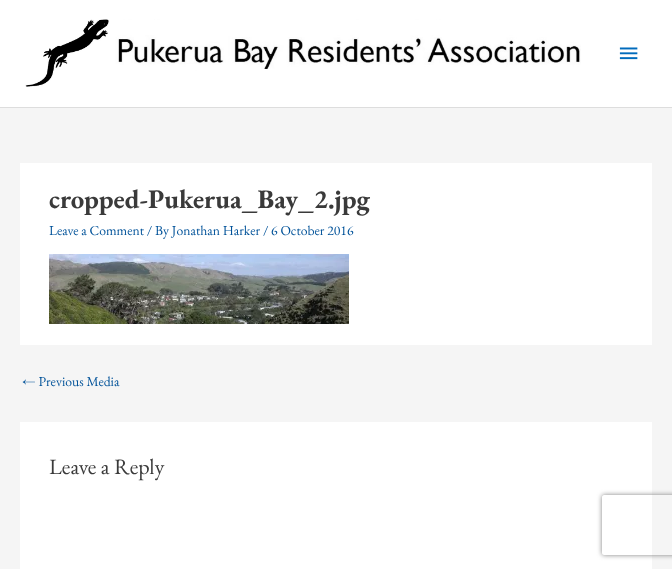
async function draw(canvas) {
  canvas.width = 672
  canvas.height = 569
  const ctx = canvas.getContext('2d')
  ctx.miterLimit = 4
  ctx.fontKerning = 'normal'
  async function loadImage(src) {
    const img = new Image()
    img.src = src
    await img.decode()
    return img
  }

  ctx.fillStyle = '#f5f5f5'
  ctx.fillRect(0, 0, 672, 569)
  ctx.fillStyle = '#fff'
  ctx.fillRect(0, 0, 672, 107)
  ctx.fillStyle = '#ddd'
  ctx.fillRect(0, 107, 672, 1)
  ctx.drawImage(await loadImage('image0.png'), 25, 19, 556, 68)
  ctx.drawImage(await loadImage('image1.png'), 619, 47, 19, 13)
  ctx.fillStyle = '#fff'
  ctx.fillRect(20, 163, 632, 182)
  ctx.font = 'bold 26.75px EB Garamond'
  ctx.fillStyle = '#3a3a3a'
  ctx.fillText('cropped-Pukerua_Bay_2.jpg', 49, 208)
  ctx.font = '13.7px EB Garamond'
  ctx.fillStyle = '#015299'
  ctx.fillText('Leave a Comment / By Jonathan Harker / 6 October 2016', 49, 235)
  ctx.drawImage(await loadImage('image2.png'), 49, 254, 300, 70)
  ctx.fillText('← Previous Media', 22, 386)
  ctx.fillStyle = '#fff'
  ctx.fillRect(20, 422, 632, 147)
  ctx.font = '22px EB Garamond'
  ctx.fillStyle = '#3a3a3a'
  ctx.fillText('Leave a Reply', 49, 474)
  ctx.save()
  ctx.beginPath()
  ctx.moveTo(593, 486)
  ctx.lineTo(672, 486)
  ctx.lineTo(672, 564)
  ctx.lineTo(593, 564)
  ctx.closePath()
  ctx.moveTo(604, 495)
  ctx.lineTo(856, 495)
  ctx.bezierCurveTo(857, 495, 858, 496, 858, 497)
  ctx.lineTo(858, 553)
  ctx.bezierCurveTo(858, 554, 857, 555, 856, 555)
  ctx.lineTo(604, 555)
  ctx.bezierCurveTo(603, 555, 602, 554, 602, 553)
  ctx.lineTo(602, 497)
  ctx.bezierCurveTo(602, 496, 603, 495, 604, 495)
  ctx.closePath()
  ctx.clip('evenodd')
  ctx.fillStyle = '#808080'
  ctx.filter = 'blur(2.5px)'
  ctx.beginPath()
  ctx.roundRect(602, 495, 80, 60, 2)
  ctx.fill()
  ctx.filter = 'none'
  ctx.restore()
}

draw(document.querySelector('canvas'))
